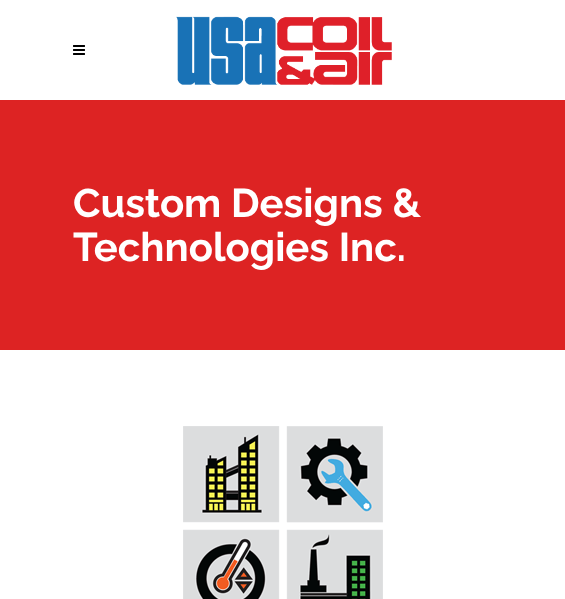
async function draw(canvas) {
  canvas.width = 565
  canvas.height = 599
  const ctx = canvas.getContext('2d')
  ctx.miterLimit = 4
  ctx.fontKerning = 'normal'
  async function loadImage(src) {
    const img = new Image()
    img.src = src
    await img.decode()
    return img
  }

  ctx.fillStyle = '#fff'
  ctx.fillRect(0, 0, 565, 599)
  ctx.drawImage(await loadImage('image0.png'), 73, 45, 12, 10)
  ctx.drawImage(await loadImage('image1.png'), 176, 16, 216, 69)
  ctx.fillStyle = '#dd2323'
  ctx.fillRect(0, 100, 565, 250)
  ctx.font = 'bold 40px Raleway'
  ctx.fillStyle = '#fff'
  ctx.fillText('Custom Designs &', 73, 217)
  ctx.fillText('Technologies Inc.', 73, 261)
  ctx.drawImage(await loadImage('image2.png'), 183, 426, 200, 173)
}

draw(document.querySelector('canvas'))
